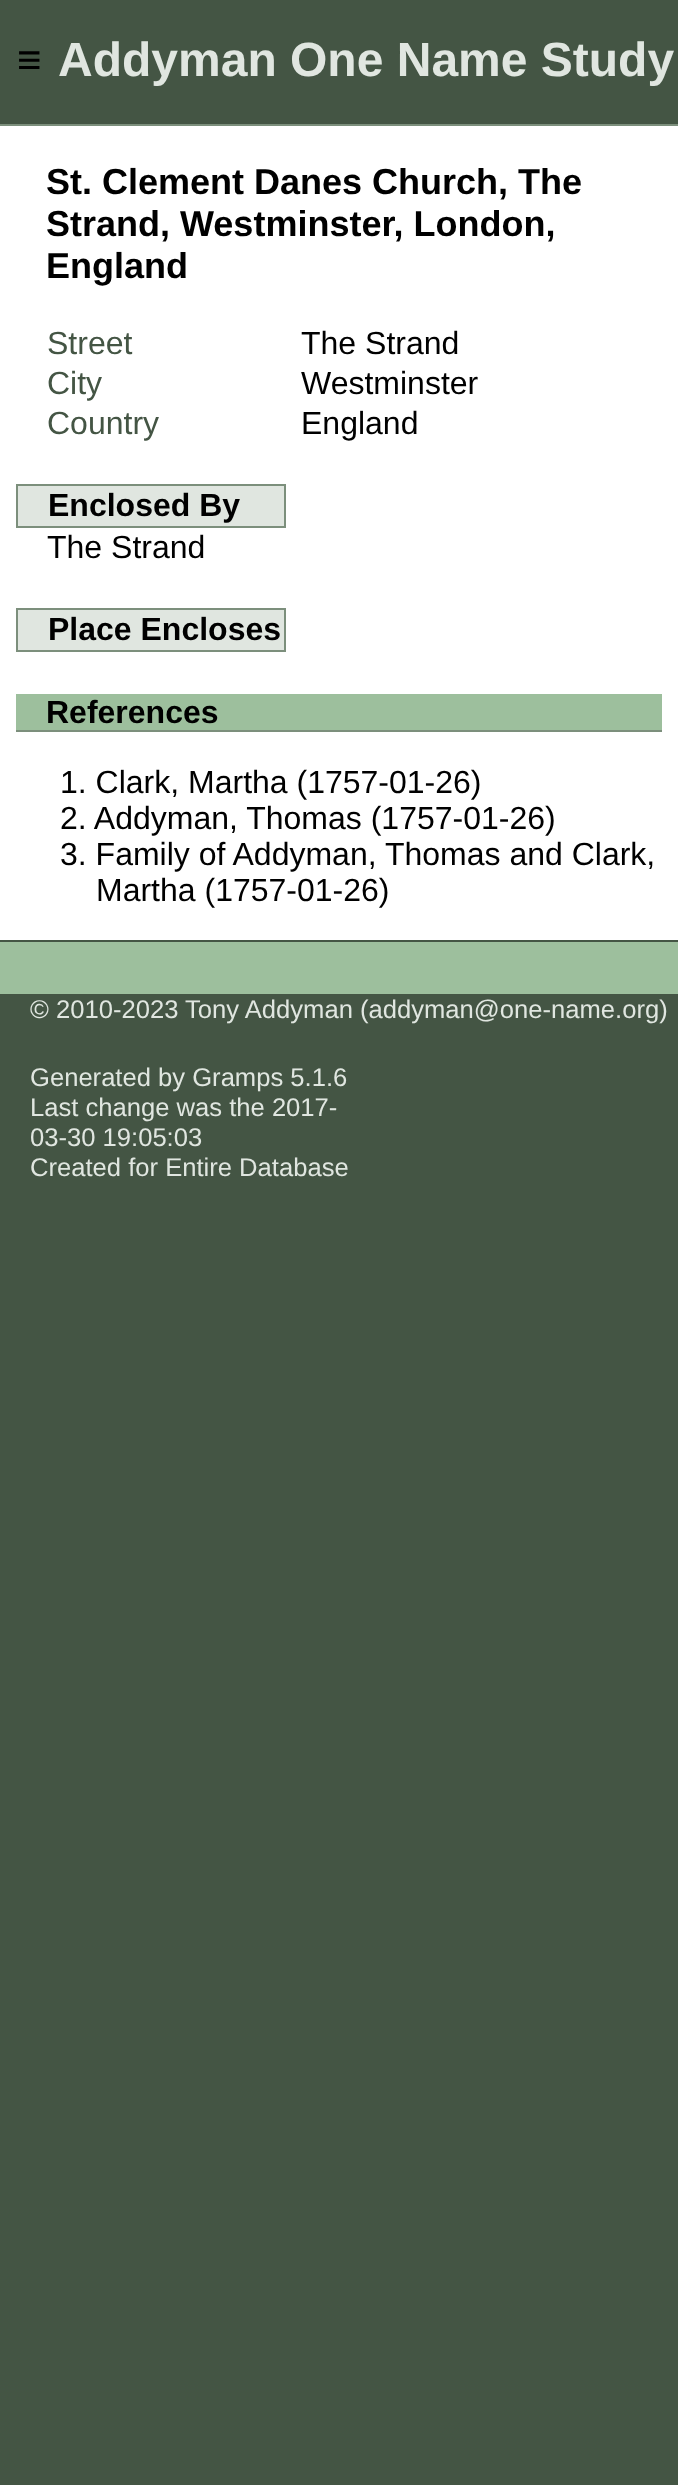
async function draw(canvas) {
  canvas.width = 678
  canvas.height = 2485
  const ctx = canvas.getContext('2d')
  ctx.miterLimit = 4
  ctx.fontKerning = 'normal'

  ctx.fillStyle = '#454'
  ctx.fillRect(0, 0, 678, 2485)
  ctx.font = '42px Liberation Sans'
  ctx.fillStyle = '#000'
  ctx.fillText('≡', 17, 74)
  ctx.font = 'bold 48px Liberation Sans'
  ctx.fillStyle = '#e0e6e0'
  ctx.fillText('Addyman One Name Study', 58, 76)
  ctx.fillStyle = '#fff'
  ctx.fillRect(0, 126, 678, 814)
  ctx.fillStyle = '#7c8f7c'
  ctx.fillRect(0, 124, 678, 2)
  ctx.font = 'bold 36px Liberation Sans'
  ctx.fillStyle = '#000'
  ctx.fillText('St. Clement Danes Church, The', 46, 194)
  ctx.fillText('Strand, Westminster, London,', 46, 236)
  ctx.fillText('England', 46, 278)
  ctx.font = '32px Liberation Sans'
  ctx.fillStyle = '#454'
  ctx.fillText('Street', 47, 354)
  ctx.fillStyle = '#000'
  ctx.fillText('The Strand', 301, 354)
  ctx.fillStyle = '#454'
  ctx.fillText('City', 47, 394)
  ctx.fillStyle = '#000'
  ctx.fillText('Westminster', 301, 394)
  ctx.fillStyle = '#454'
  ctx.fillText('Country', 47, 434)
  ctx.fillStyle = '#000'
  ctx.fillText('England', 301, 434)
  ctx.fillStyle = '#e0e6e0'
  ctx.fillRect(18, 486, 266, 40)
  ctx.fillStyle = '#7c8f7c'
  ctx.fillRect(16, 484, 270, 2)
  ctx.fillRect(284, 484, 2, 44)
  ctx.fillRect(16, 526, 270, 2)
  ctx.fillRect(16, 484, 2, 44)
  ctx.font = 'bold 32px Liberation Sans'
  ctx.fillStyle = '#000'
  ctx.fillText('Enclosed By', 48, 516)
  ctx.font = '32px Liberation Sans'
  ctx.fillText('The Strand', 47, 558)
  ctx.fillStyle = '#e0e6e0'
  ctx.fillRect(18, 610, 266, 40)
  ctx.fillStyle = '#7c8f7c'
  ctx.fillRect(16, 608, 270, 2)
  ctx.fillRect(284, 608, 2, 44)
  ctx.fillRect(16, 650, 270, 2)
  ctx.fillRect(16, 608, 2, 44)
  ctx.font = 'bold 32px Liberation Sans'
  ctx.fillStyle = '#000'
  ctx.fillText('Place Encloses', 48, 640)
  ctx.fillStyle = '#9dbf9d'
  ctx.fillRect(16, 694, 646, 36)
  ctx.fillStyle = '#7c8f7c'
  ctx.fillRect(16, 730, 646, 2)
  ctx.fillStyle = '#000'
  ctx.fillText('References', 46, 723)
  ctx.font = '32px Liberation Sans'
  ctx.fillText('1. Clark, Martha (1757-01-26)', 60, 793)
  ctx.fillText('2. Addyman, Thomas (1757-01-26)', 60, 829)
  ctx.fillText('3. Family of Addyman, Thomas and Clark,', 60, 865)
  ctx.fillText('Martha (1757-01-26)', 96, 901)
  ctx.fillStyle = '#9dbf9d'
  ctx.fillRect(0, 942, 678, 52)
  ctx.font = '25.6px Liberation Sans'
  ctx.fillStyle = '#e0e6e0'
  ctx.fillText('© 2010-2023 Tony Addyman (addyman@one-name.org)', 30, 1018)
  ctx.fillText('Generated by Gramps 5.1.6', 30, 1086)
  ctx.fillText('Last change was the 2017-', 30, 1116)
  ctx.fillText('03-30 19:05:03', 30, 1146)
  ctx.fillText('Created for Entire Database', 30, 1176)
}

draw(document.querySelector('canvas'))
